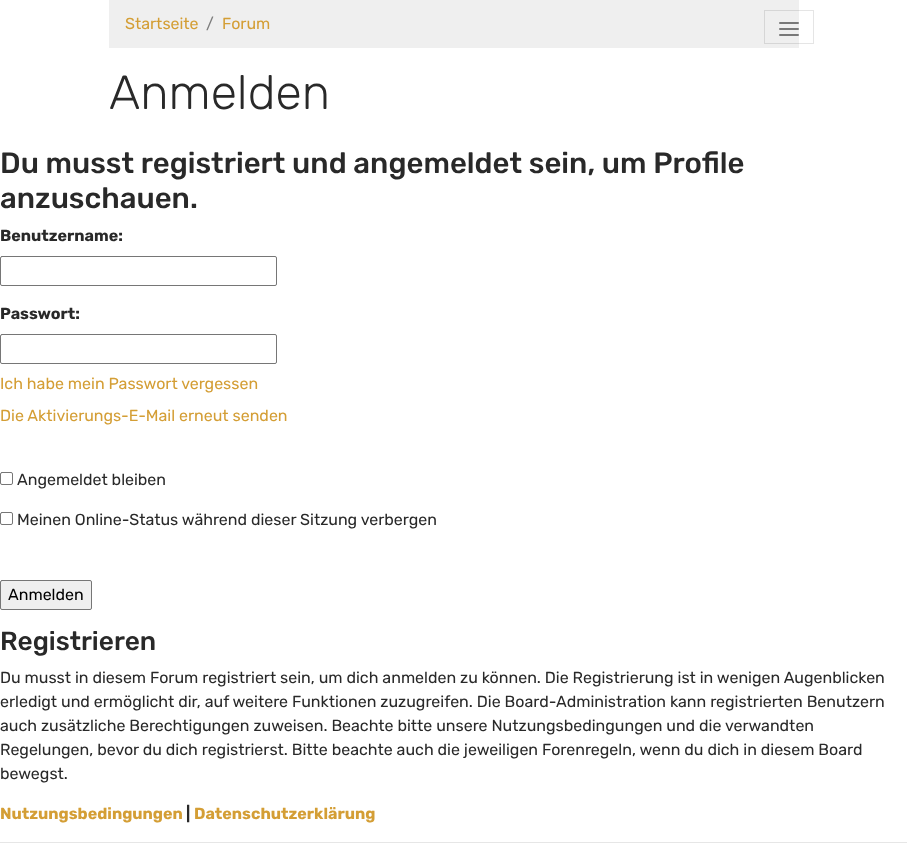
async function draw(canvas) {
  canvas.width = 907
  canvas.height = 862
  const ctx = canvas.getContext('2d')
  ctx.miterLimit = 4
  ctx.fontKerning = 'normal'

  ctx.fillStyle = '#fff'
  ctx.fillRect(0, 0, 907, 862)
  ctx.fillStyle = '#efefef'
  ctx.fillRect(109, 0, 690, 48)
  ctx.font = '16px Rubik'
  ctx.fillStyle = '#d49e35'
  ctx.fillText('Startseite', 125, 29)
  ctx.fillStyle = '#7d7d7d'
  ctx.fillText('/', 206, 29)
  ctx.fillStyle = '#d49e35'
  ctx.fillText('Forum', 222, 29)
  ctx.strokeStyle = '#0000001a'
  ctx.strokeRect(764.5, 10.5, 49, 33)
  ctx.beginPath()
  ctx.moveTo(780, 29)
  ctx.lineTo(798, 29)
  ctx.moveTo(780, 23)
  ctx.lineTo(798, 23)
  ctx.moveTo(780, 35)
  ctx.lineTo(798, 35)
  ctx.strokeStyle = '#787878'
  ctx.lineWidth = 2
  ctx.lineCap = 'round'
  ctx.lineJoin = 'round'
  ctx.stroke()
  ctx.font = '300 48px Rubik'
  ctx.fillStyle = '#292929'
  ctx.fillText('Anmelden', 109, 109)
  ctx.font = '500 29.35px Rubik'
  ctx.fillText('Du musst registriert und angemeldet sein, um Profile', 0, 173)
  ctx.fillText('anzuschauen.', 0, 208)
  ctx.font = 'bold 16px Rubik'
  ctx.fillText('Benutzername:', 0, 241)
  ctx.beginPath()
  ctx.roundRect(0.5, 256.5, 276, 29, 1.5)
  ctx.strokeStyle = '#767676'
  ctx.lineWidth = 1
  ctx.lineJoin = 'miter'
  ctx.stroke()
  ctx.fillText('Passwort:', 0, 319)
  ctx.beginPath()
  ctx.roundRect(0.5, 334.5, 276, 29, 1.5)
  ctx.stroke()
  ctx.font = '16px Rubik'
  ctx.fillStyle = '#d49e35'
  ctx.fillText('Ich habe mein Passwort vergessen', 0, 389)
  ctx.fillText('Die Aktivierungs-E-Mail erneut senden', 0, 421)
  ctx.beginPath()
  ctx.roundRect(0.5, 472.5, 12, 12, 1.5)
  ctx.stroke()
  ctx.fillStyle = '#292929'
  ctx.fillText('Angemeldet bleiben', 17, 485)
  ctx.beginPath()
  ctx.roundRect(0.5, 512.5, 12, 12, 1.5)
  ctx.stroke()
  ctx.fillText('Meinen Online-Status während dieser Sitzung verbergen', 17, 525)
  ctx.fillStyle = '#efefef'
  ctx.beginPath()
  ctx.roundRect(0.5, 580.5, 91, 29, 1.5)
  ctx.fill()
  ctx.stroke()
  ctx.fillStyle = '#000'
  ctx.fillText('Anmelden', 8, 600)
  ctx.font = '500 26.25px Rubik'
  ctx.fillStyle = '#292929'
  ctx.fillText('Registrieren', 0, 650)
  ctx.font = '16px Rubik'
  ctx.fillText('Du musst in diesem Forum registriert sein, um dich anmelden zu können. Die Registrierung ist in wenigen Augenblicken', 0, 683)
  ctx.fillText('erledigt und ermöglicht dir, auf weitere Funktionen zuzugreifen. Die Board-Administration kann registrierten Benutzern', 0, 707)
  ctx.fillText('auch zusätzliche Berechtigungen zuweisen. Beachte bitte unsere Nutzungsbedingungen und die verwandten', 0, 731)
  ctx.fillText('Regelungen, bevor du dich registrierst. Bitte beachte auch die jeweiligen Forenregeln, wenn du dich in diesem Board', 0, 755)
  ctx.fillText('bewegst.', 0, 779)
  ctx.font = 'bold 16px Rubik'
  ctx.fillStyle = '#d49e35'
  ctx.fillText('Nutzungsbedingungen', 0, 819)
  ctx.fillStyle = '#292929'
  ctx.fillText('|', 186, 819)
  ctx.fillStyle = '#d49e35'
  ctx.fillText('Datenschutzerklärung', 194, 819)
  ctx.fillStyle = '#e6e6e6'
  ctx.fillRect(0, 842, 907, 1)
}

draw(document.querySelector('canvas'))
